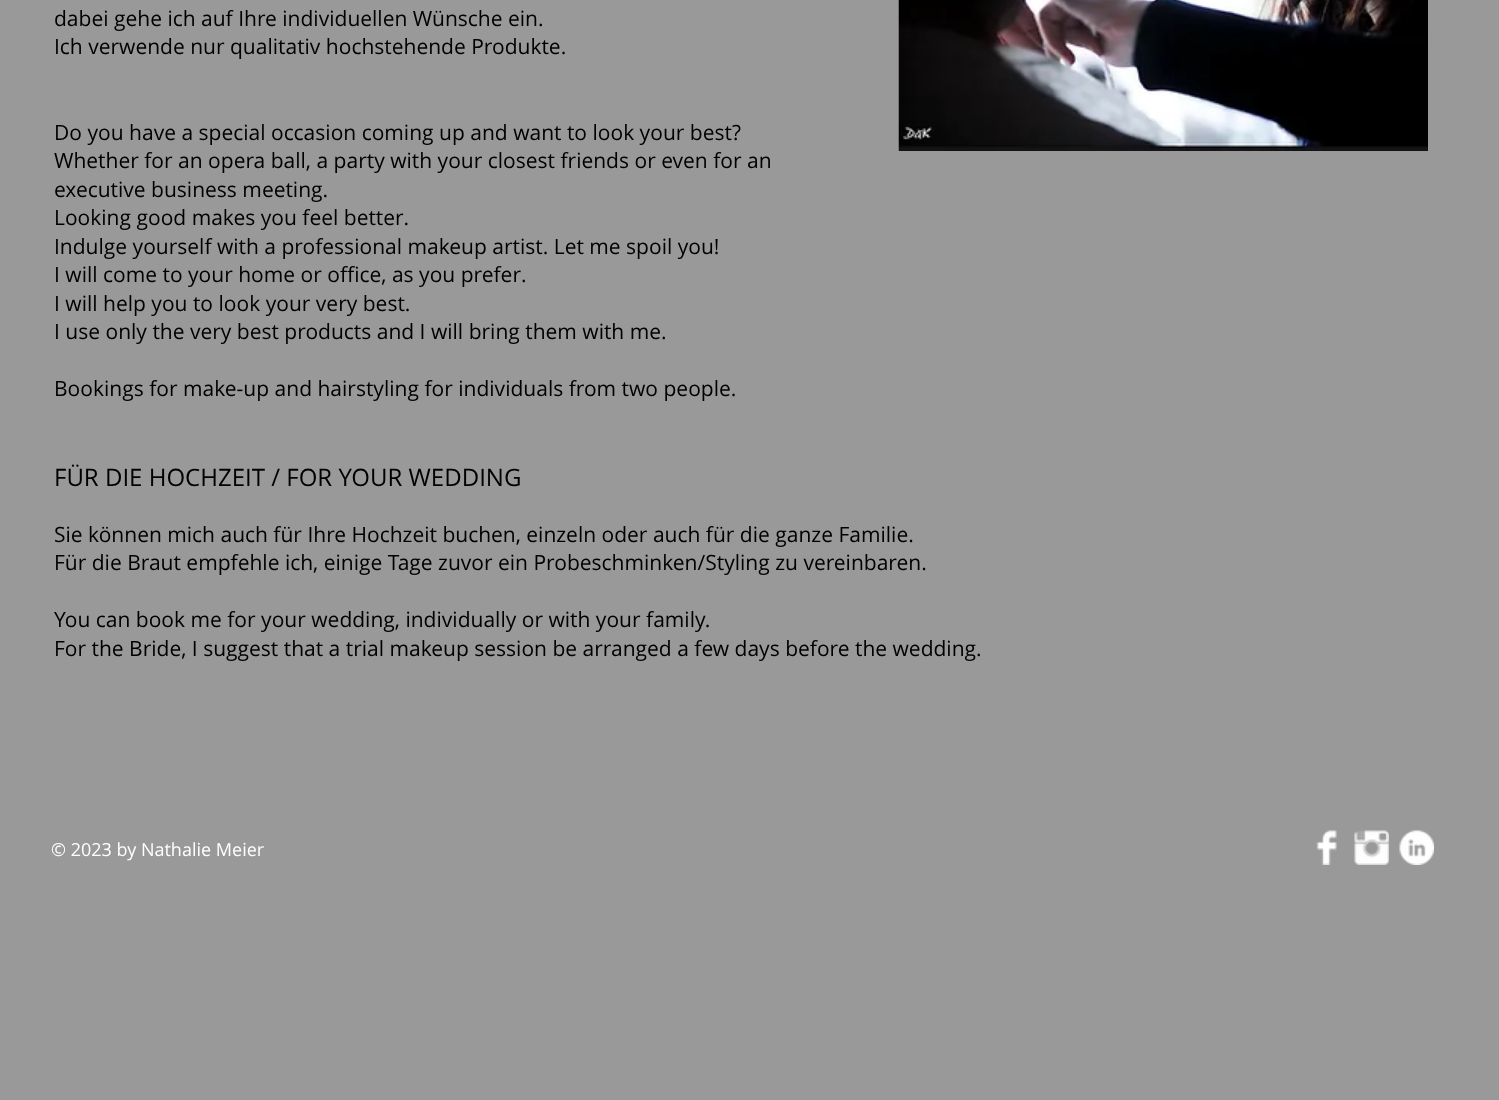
async function draw(canvas) {
  canvas.width = 1499
  canvas.height = 1100
  const ctx = canvas.getContext('2d')
  ctx.miterLimit = 4
  ctx.fontKerning = 'normal'
  async function loadImage(src) {
    const img = new Image()
    img.src = src
    await img.decode()
    return img
  }

  ctx.fillStyle = '#999'
  ctx.fillRect(0, 0, 1499, 1100)
  ctx.font = '21px Open Sans'
  ctx.fillStyle = '#000'
  ctx.fillText('dabei gehe ich auf Ihre individuellen Wünsche ein.', 54, 26)
  ctx.fillText('Ich verwende nur qualitativ hochstehende Produkte.', 54, 54)
  ctx.fillText('Do you have a special occasion coming up and want to look your best?', 54, 140)
  ctx.fillText('Whether for an opera ball, a party with your closest friends or even for an', 54, 168)
  ctx.fillText('executive business meeting.', 54, 197)
  ctx.fillText('Looking good makes you feel better.', 54, 225)
  ctx.fillText('Indulge yourself with a professional makeup artist. Let me spoil you!', 54, 254)
  ctx.fillText('I will come to your home or office, as you prefer.', 54, 282)
  ctx.fillText('I will help you to look your very best.', 54, 311)
  ctx.fillText('I use only the very best products and I will bring them with me.', 54, 339)
  ctx.fillText('Bookings for make-up and hairstyling for individuals from two people.', 54, 396)
  ctx.fillText('Sie können mich auch für Ihre Hochzeit buchen, einzeln oder auch für die ganze Familie.', 54, 542)
  ctx.fillText('Für die Braut empfehle ich, einige Tage zuvor ein Probeschminken/Styling zu vereinbaren.', 54, 570)
  ctx.fillText('You can book me for your wedding, individually or with your family.', 54, 627)
  ctx.fillText('For the Bride, I suggest that a trial makeup session be arranged a few days before the wedding.', 54, 656)
  ctx.drawImage(await loadImage('image0.png'), 898, 0, 530, 151)
  ctx.font = '24px Open Sans'
  ctx.fillText('FÜR DIE HOCHZEIT / FOR YOUR WEDDING', 54, 486)
  ctx.font = '18px Open Sans'
  ctx.fillStyle = '#fff'
  ctx.fillText('© 2023 by Nathalie Meier', 51, 856)
  ctx.drawImage(await loadImage('image1.png'), 1316, 830, 21, 35)
  ctx.drawImage(await loadImage('image2.png'), 1354, 830, 35, 35)
  ctx.drawImage(await loadImage('image3.png'), 1399, 830, 35, 35)
}

draw(document.querySelector('canvas'))
